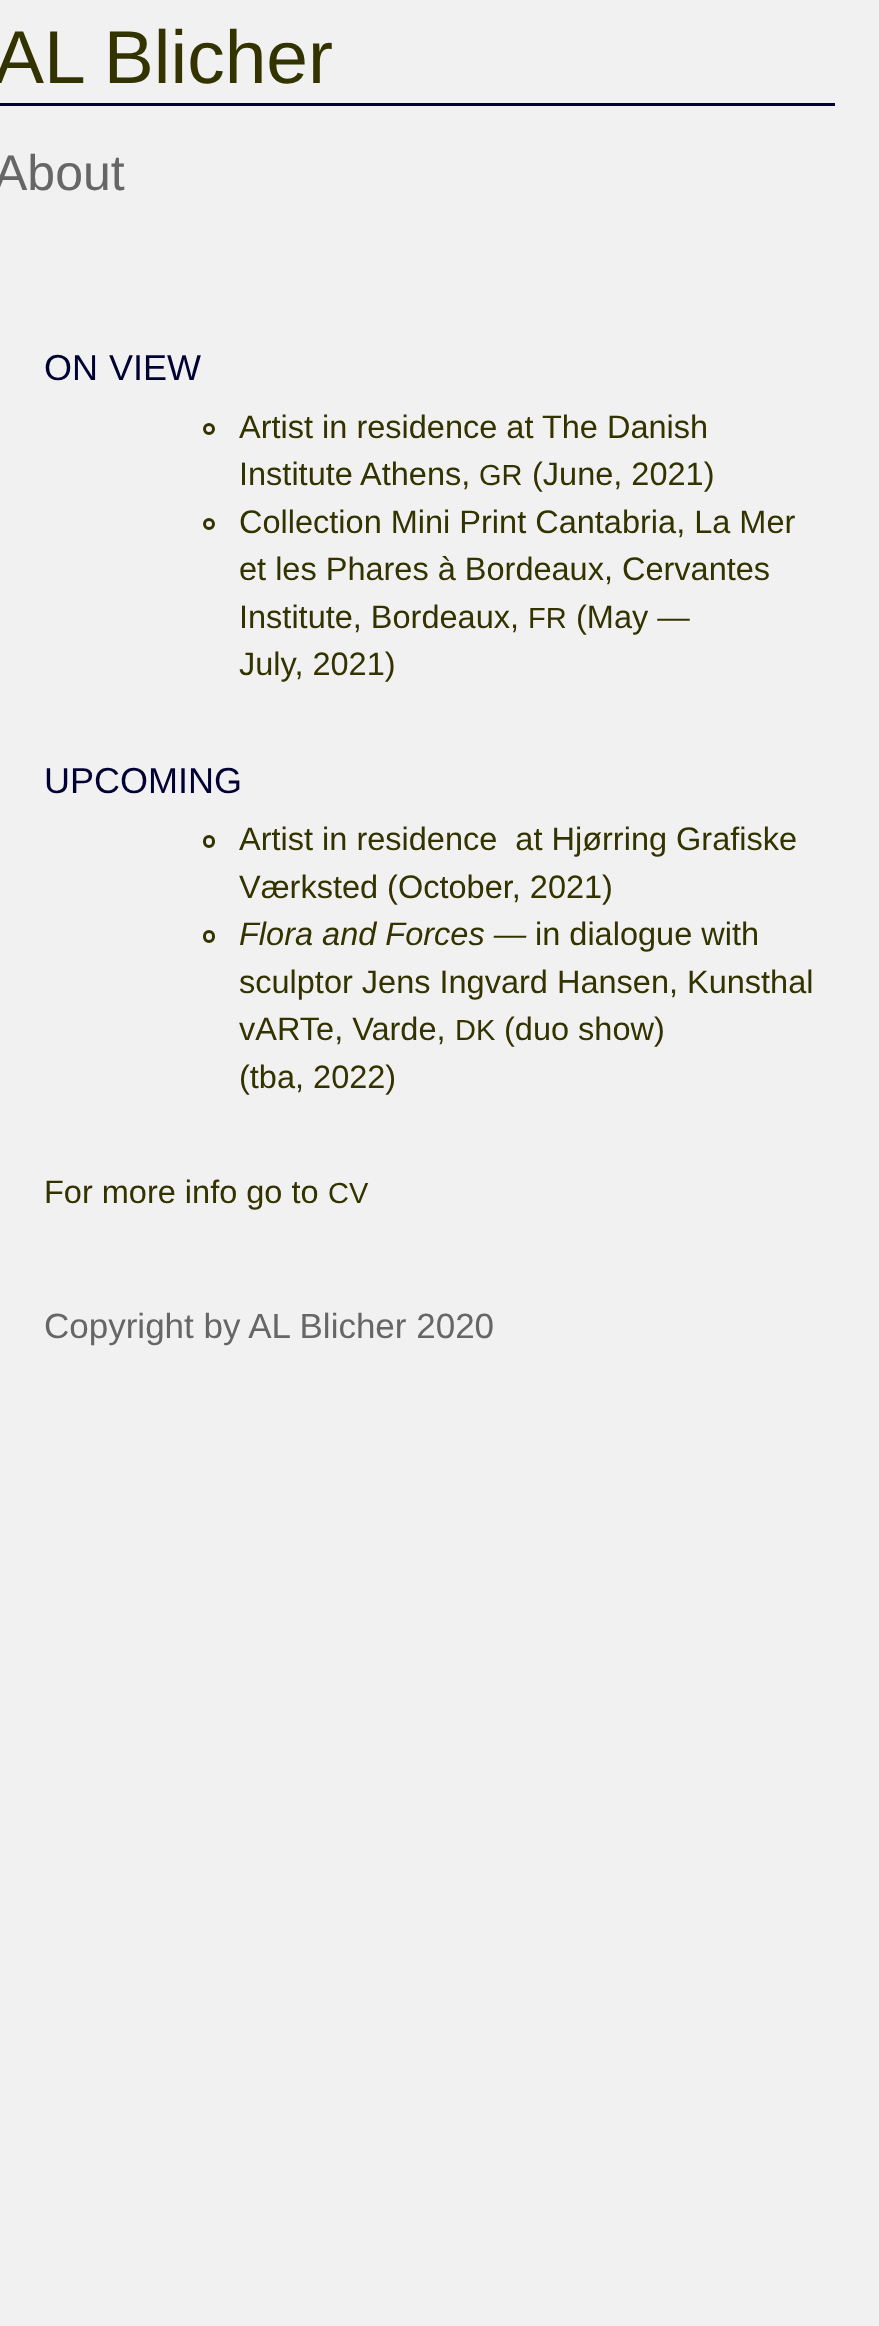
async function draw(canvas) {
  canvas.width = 879
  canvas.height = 2326
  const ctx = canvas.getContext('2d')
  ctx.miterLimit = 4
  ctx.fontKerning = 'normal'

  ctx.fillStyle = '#f1f1f1'
  ctx.fillRect(0, 0, 879, 2326)
  ctx.font = '75px Liberation Sans'
  ctx.fillStyle = '#330'
  ctx.fillText('AL Blicher', -6, 83)
  ctx.fillStyle = '#003'
  ctx.fillRect(0, 103, 835, 3)
  ctx.font = '50px Liberation Sans'
  ctx.fillStyle = '#666'
  ctx.fillText('About', -6, 190)
  ctx.font = '36px Liberation Sans'
  ctx.fillStyle = '#003'
  ctx.fillText('ON', 44, 380)
  ctx.fillText('VIEW', 109, 380)
  ctx.beginPath()
  ctx.arc(209, 429, 4.5, 0, 2 * Math.PI)
  ctx.strokeStyle = '#330'
  ctx.lineWidth = 3
  ctx.stroke()
  ctx.font = '32.5px Liberation Sans'
  ctx.fillStyle = '#330'
  ctx.fillText('Artist in residence at The Danish', 239, 438)
  ctx.fillText('Institute Athens,', 239, 485)
  ctx.font = '29px Liberation Sans'
  ctx.fillText('GR', 479, 485)
  ctx.font = '32.5px Liberation Sans'
  ctx.fillText('(June, 2021)', 532, 485)
  ctx.beginPath()
  ctx.arc(209, 524, 4.5, 0, 2 * Math.PI)
  ctx.stroke()
  ctx.fillText('Collection Mini Print Cantabria, La Mer', 239, 533)
  ctx.fillText('et les Phares à Bordeaux, Cervantes', 239, 580)
  ctx.fillText('Institute, Bordeaux,', 239, 628)
  ctx.font = '29px Liberation Sans'
  ctx.fillText('FR', 528, 628)
  ctx.font = '32.5px Liberation Sans'
  ctx.fillText('(May —', 576, 628)
  ctx.fillText('July, 2021)', 239, 675)
  ctx.font = '36px Liberation Sans'
  ctx.fillStyle = '#003'
  ctx.fillText('UPCOMING', 44, 793)
  ctx.beginPath()
  ctx.roundRect(204.5, 836.5, 9, 10, 4.5)
  ctx.stroke()
  ctx.font = '32.5px Liberation Sans'
  ctx.fillStyle = '#330'
  ctx.fillText('Artist in residence  at Hjørring Grafiske', 239, 850)
  ctx.fillText('Værksted (October, 2021)', 239, 898)
  ctx.beginPath()
  ctx.roundRect(204.5, 931.5, 9, 10, 4.5)
  ctx.stroke()
  ctx.font = 'italic 32.5px Liberation Sans'
  ctx.fillText('Flora and Forces —', 239, 945)
  ctx.font = '32.5px Liberation Sans'
  ctx.fillText('in dialogue with', 535, 945)
  ctx.fillText('sculptor Jens Ingvard Hansen, Kunsthal', 239, 993)
  ctx.fillText('vARTe, Varde,', 239, 1040)
  ctx.font = '29px Liberation Sans'
  ctx.fillText('DK', 455, 1040)
  ctx.font = '32.5px Liberation Sans'
  ctx.fillText('(duo show)', 504, 1040)
  ctx.fillText('(tba, 2022)', 239, 1088)
  ctx.fillText('For more info go to', 44, 1203)
  ctx.font = '29px Liberation Sans'
  ctx.fillText('CV', 328, 1203)
  ctx.font = '35px Liberation Sans'
  ctx.fillStyle = '#666'
  ctx.fillText('Copyright by AL Blicher 2020', 44, 1338)
}

draw(document.querySelector('canvas'))
